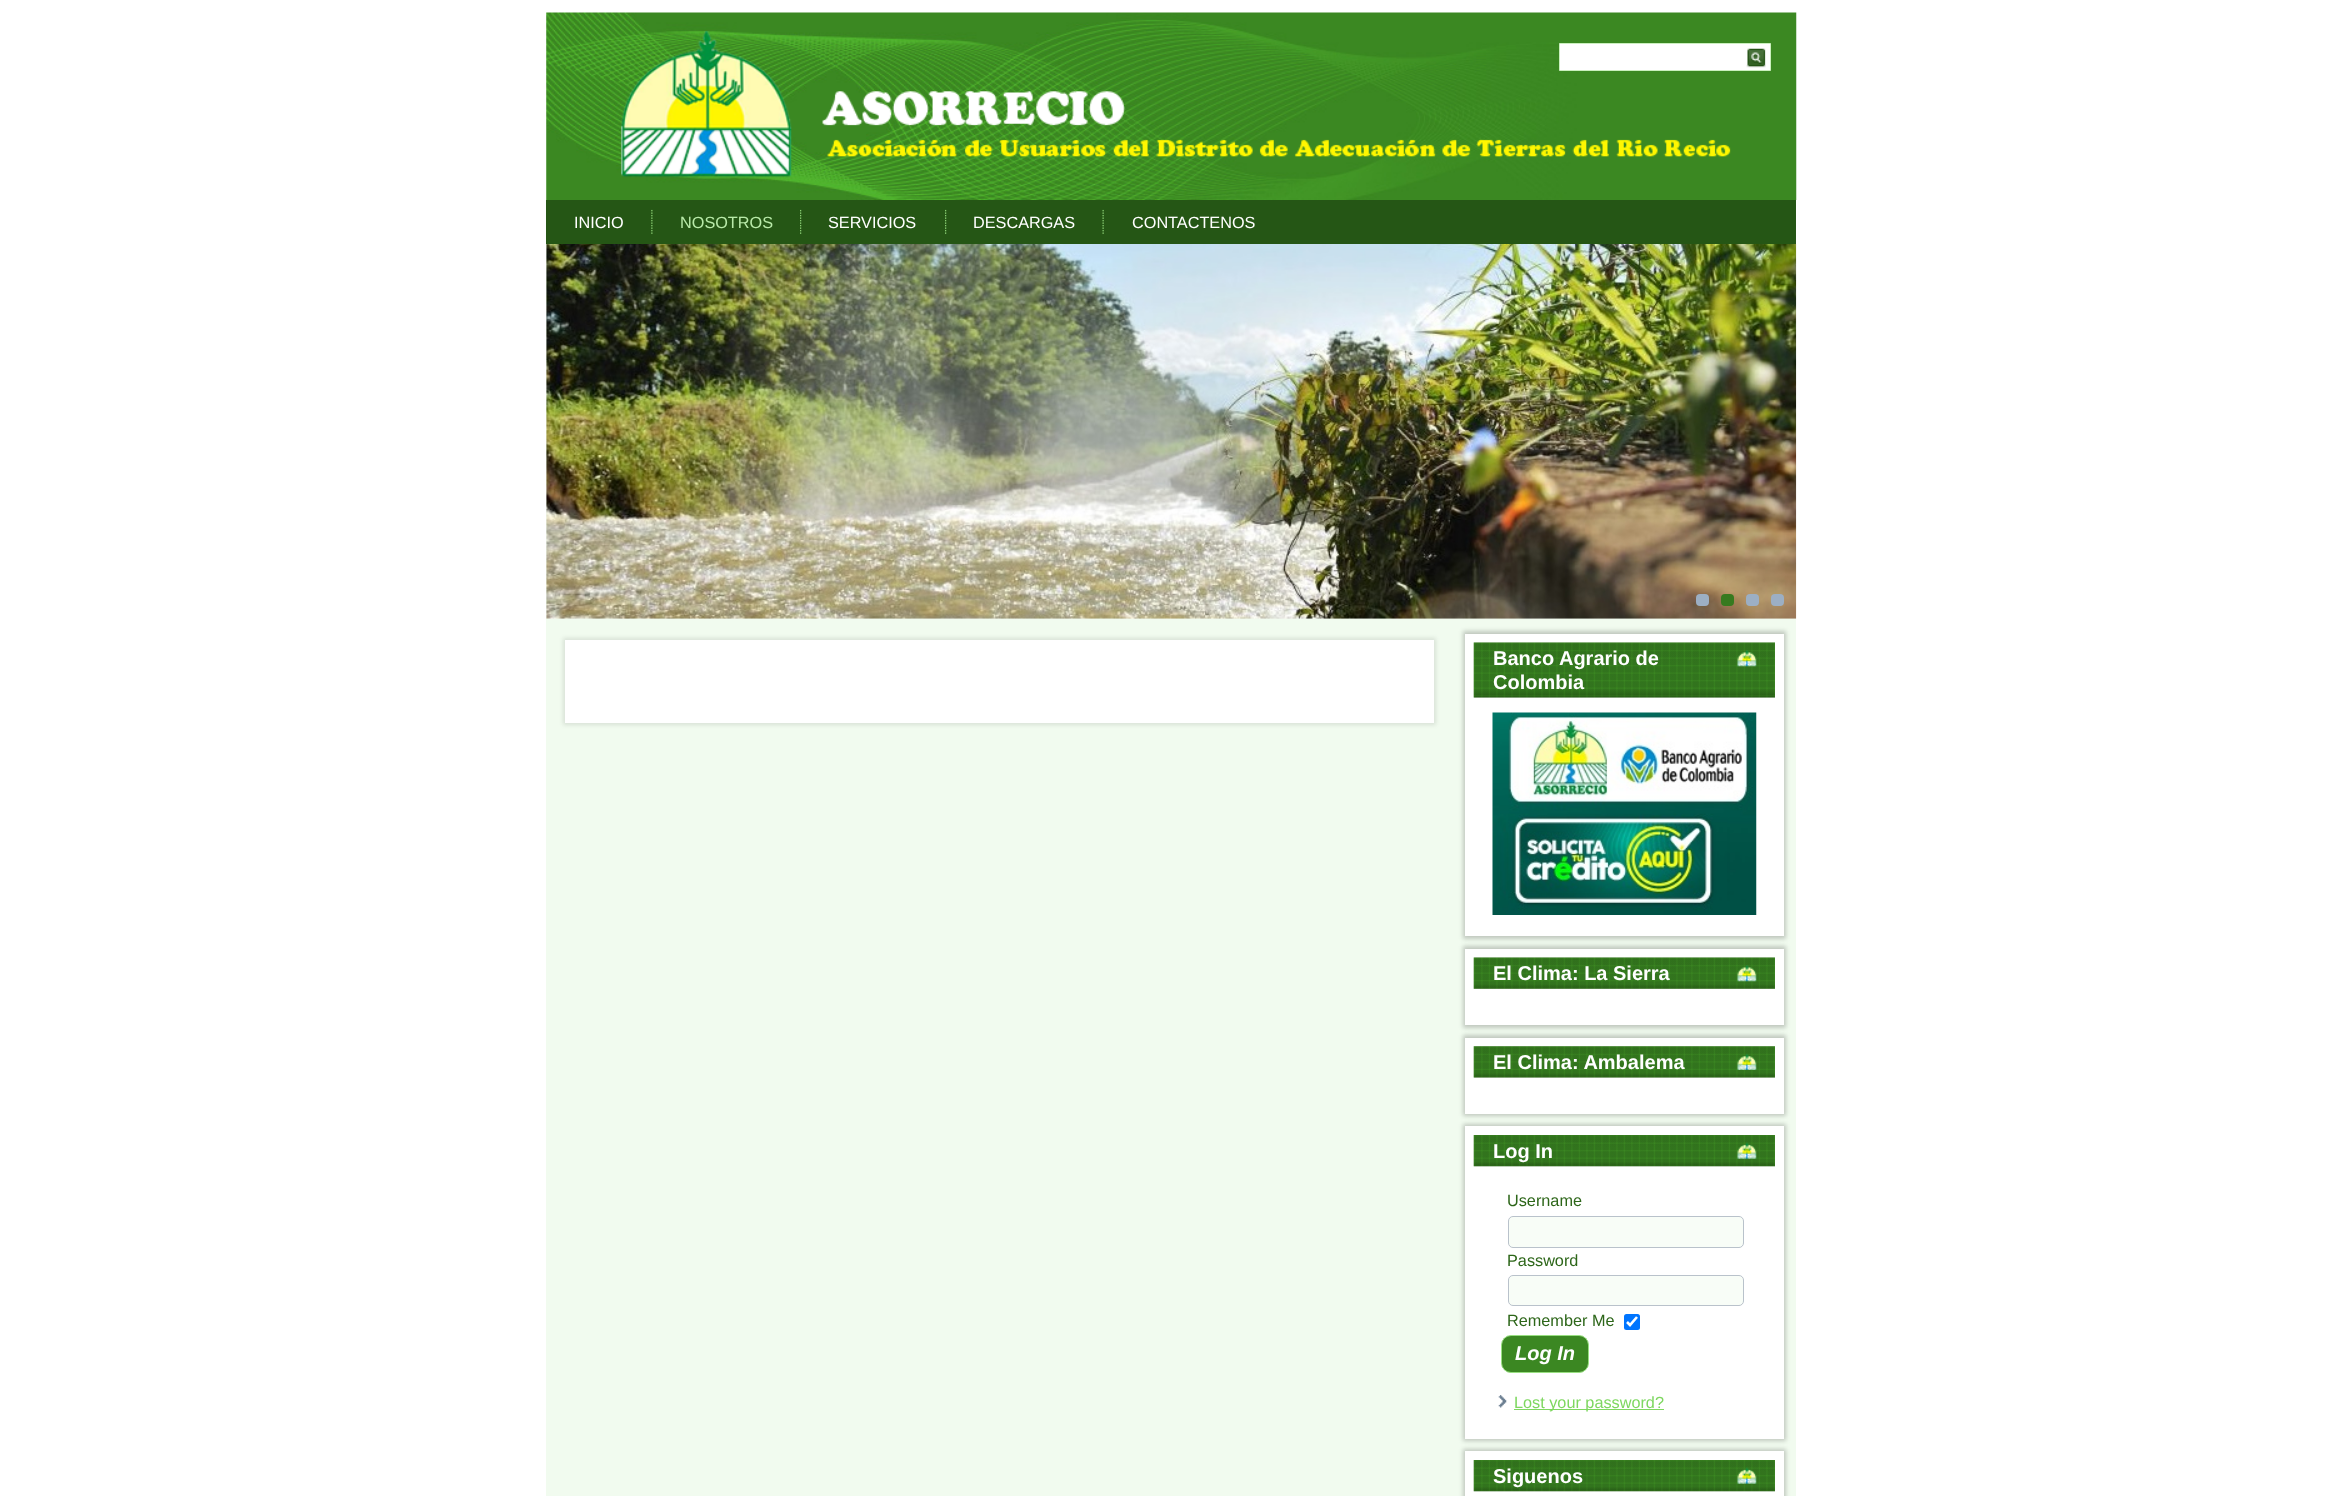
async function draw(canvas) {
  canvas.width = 2342
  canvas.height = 1496
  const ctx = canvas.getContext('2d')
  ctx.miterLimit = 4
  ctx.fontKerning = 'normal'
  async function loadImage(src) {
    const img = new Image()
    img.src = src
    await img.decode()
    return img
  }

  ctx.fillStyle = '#fff'
  ctx.fillRect(0, 0, 2342, 1496)
  ctx.fillStyle = '#f1fbef'
  ctx.fillRect(546, 13, 1250, 1483)
  ctx.drawImage(await loadImage('image0.png'), 546, 12, 1251, 188)
  ctx.fillStyle = '#fff'
  ctx.beginPath()
  ctx.rect(1559.5, 43.5, 211, 27)
  ctx.fill()
  ctx.strokeStyle = '#caefbe'
  ctx.stroke()
  ctx.drawImage(await loadImage('image1.png'), 1746, 48, 20, 20)
  ctx.fillStyle = '#255615'
  ctx.fillRect(546, 200, 1250, 44)
  ctx.font = '16.25px Liberation Sans'
  ctx.fillStyle = '#fff'
  ctx.fillText('INICIO', 574, 228)
  ctx.drawImage(await loadImage('image2.png'), 651, 209, 2, 25)
  ctx.fillStyle = '#b9eaa9'
  ctx.fillText('NOSOTROS', 680, 228)
  ctx.drawImage(await loadImage('image3.png'), 800, 209, 2, 25)
  ctx.fillStyle = '#fff'
  ctx.fillText('SERVICIOS', 828, 228)
  ctx.drawImage(await loadImage('image3.png'), 945, 209, 2, 25)
  ctx.fillText('DESCARGAS', 973, 228)
  ctx.drawImage(await loadImage('image4.png'), 1102, 209, 2, 25)
  ctx.fillText('CONTACTENOS', 1132, 228)
  ctx.drawImage(await loadImage('image5.png'), 546, 244, 1251, 375)
  ctx.fillStyle = '#9cafc4'
  ctx.beginPath()
  ctx.roundRect(1696, 594, 13, 12, 4)
  ctx.fill()
  ctx.fillStyle = '#367a1f'
  ctx.beginPath()
  ctx.roundRect(1721, 594, 13, 12, 4)
  ctx.fill()
  ctx.fillStyle = '#9cafc4'
  ctx.beginPath()
  ctx.roundRect(1746, 594, 13, 12, 4)
  ctx.fill()
  ctx.beginPath()
  ctx.roundRect(1771, 594, 13, 12, 4)
  ctx.fill()
  ctx.fillStyle = '#0000001a'
  ctx.filter = 'blur(2px)'
  ctx.beginPath()
  ctx.rect(563, 638, 873, 87)
  ctx.fill()
  ctx.filter = 'none'
  ctx.fillStyle = '#fff'
  ctx.fillRect(565, 640, 869, 83)
  ctx.fillStyle = '#00000033'
  ctx.filter = 'blur(2px)'
  ctx.beginPath()
  ctx.rect(1463, 631, 323, 308)
  ctx.fill()
  ctx.filter = 'none'
  ctx.fillStyle = '#fff'
  ctx.fillRect(1465, 634, 319, 302)
  ctx.drawImage(await loadImage('image6.png'), 1473, 642, 302, 56)
  ctx.font = 'bold 20px Liberation Sans'
  ctx.fillText('Banco Agrario de', 1493, 665)
  ctx.drawImage(await loadImage('image7.png'), 1737, 650, 20, 17)
  ctx.fillText('Colombia', 1493, 689)
  ctx.drawImage(await loadImage('image8.png'), 1492, 712, 265, 203)
  ctx.fillStyle = '#00000033'
  ctx.filter = 'blur(2px)'
  ctx.beginPath()
  ctx.rect(1463, 946, 323, 82)
  ctx.fill()
  ctx.filter = 'none'
  ctx.fillStyle = '#fff'
  ctx.fillRect(1465, 949, 319, 76)
  ctx.drawImage(await loadImage('image9.png'), 1473, 957, 302, 32)
  ctx.fillText('El Clima: La Sierra', 1493, 980)
  ctx.drawImage(await loadImage('image10.png'), 1737, 965, 20, 17)
  ctx.fillStyle = '#00000033'
  ctx.filter = 'blur(2px)'
  ctx.beginPath()
  ctx.rect(1463, 1035, 323, 81)
  ctx.fill()
  ctx.filter = 'none'
  ctx.fillStyle = '#fff'
  ctx.fillRect(1465, 1038, 319, 76)
  ctx.drawImage(await loadImage('image11.png'), 1473, 1046, 302, 32)
  ctx.fillText('El Clima: Ambalema', 1493, 1069)
  ctx.drawImage(await loadImage('image12.png'), 1737, 1053, 20, 17)
  ctx.fillStyle = '#00000033'
  ctx.filter = 'blur(2px)'
  ctx.beginPath()
  ctx.rect(1463, 1124, 323, 317)
  ctx.fill()
  ctx.filter = 'none'
  ctx.fillStyle = '#fff'
  ctx.fillRect(1465, 1126, 319, 313)
  ctx.drawImage(await loadImage('image13.png'), 1473, 1135, 302, 32)
  ctx.fillText('Log In', 1493, 1158)
  ctx.drawImage(await loadImage('image14.png'), 1737, 1142, 20, 17)
  ctx.font = '16.25px Liberation Sans'
  ctx.fillStyle = '#2d6619'
  ctx.fillText('Username', 1507, 1206)
  ctx.fillStyle = '#f8fdf7'
  ctx.beginPath()
  ctx.roundRect(1508.5, 1216.5, 235, 31, 4.5)
  ctx.fill()
  ctx.strokeStyle = '#b9c2cb'
  ctx.stroke()
  ctx.fillStyle = '#2d6619'
  ctx.fillText('Password', 1507, 1266)
  ctx.fillStyle = '#f8fdf7'
  ctx.beginPath()
  ctx.roundRect(1508.5, 1275.5, 235, 30, 4.5)
  ctx.fill()
  ctx.stroke()
  ctx.fillStyle = '#2d6619'
  ctx.fillText('Remember Me', 1507, 1326)
  ctx.fillStyle = '#0075ff'
  ctx.beginPath()
  ctx.roundRect(1624, 1314, 16, 16, 2.5)
  ctx.fill()
  ctx.beginPath()
  ctx.moveTo(1627, 1322)
  ctx.lineTo(1630, 1325)
  ctx.lineTo(1637, 1317)
  ctx.strokeStyle = '#fff'
  ctx.lineWidth = 2.6
  ctx.stroke()
  ctx.fillStyle = '#3b8722'
  ctx.beginPath()
  ctx.roundRect(1501.5, 1335.5, 87, 37, 9.5)
  ctx.fill()
  ctx.strokeStyle = '#98df81'
  ctx.lineWidth = 1
  ctx.stroke()
  ctx.font = 'italic bold 20px Liberation Sans'
  ctx.fillStyle = '#fff'
  ctx.fillText('Log In', 1515, 1360)
  ctx.drawImage(await loadImage('image15.png'), 1498, 1395, 9, 13)
  ctx.fillStyle = '#7ed760'
  ctx.fillRect(1514, 1409, 150, 1)
  ctx.font = '16.25px Liberation Sans'
  ctx.fillText('Lost your password?', 1514, 1408)
  ctx.fillStyle = '#00000033'
  ctx.filter = 'blur(2px)'
  ctx.beginPath()
  ctx.rect(1463, 1449, 323, 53)
  ctx.fill()
  ctx.filter = 'none'
  ctx.fillStyle = '#fff'
  ctx.fillRect(1465, 1451, 319, 45)
  ctx.drawImage(await loadImage('image16.png'), 1473, 1460, 302, 32)
  ctx.font = 'bold 20px Liberation Sans'
  ctx.fillText('Siguenos', 1493, 1483)
  ctx.drawImage(await loadImage('image17.png'), 1737, 1467, 20, 17)
}

draw(document.querySelector('canvas'))
